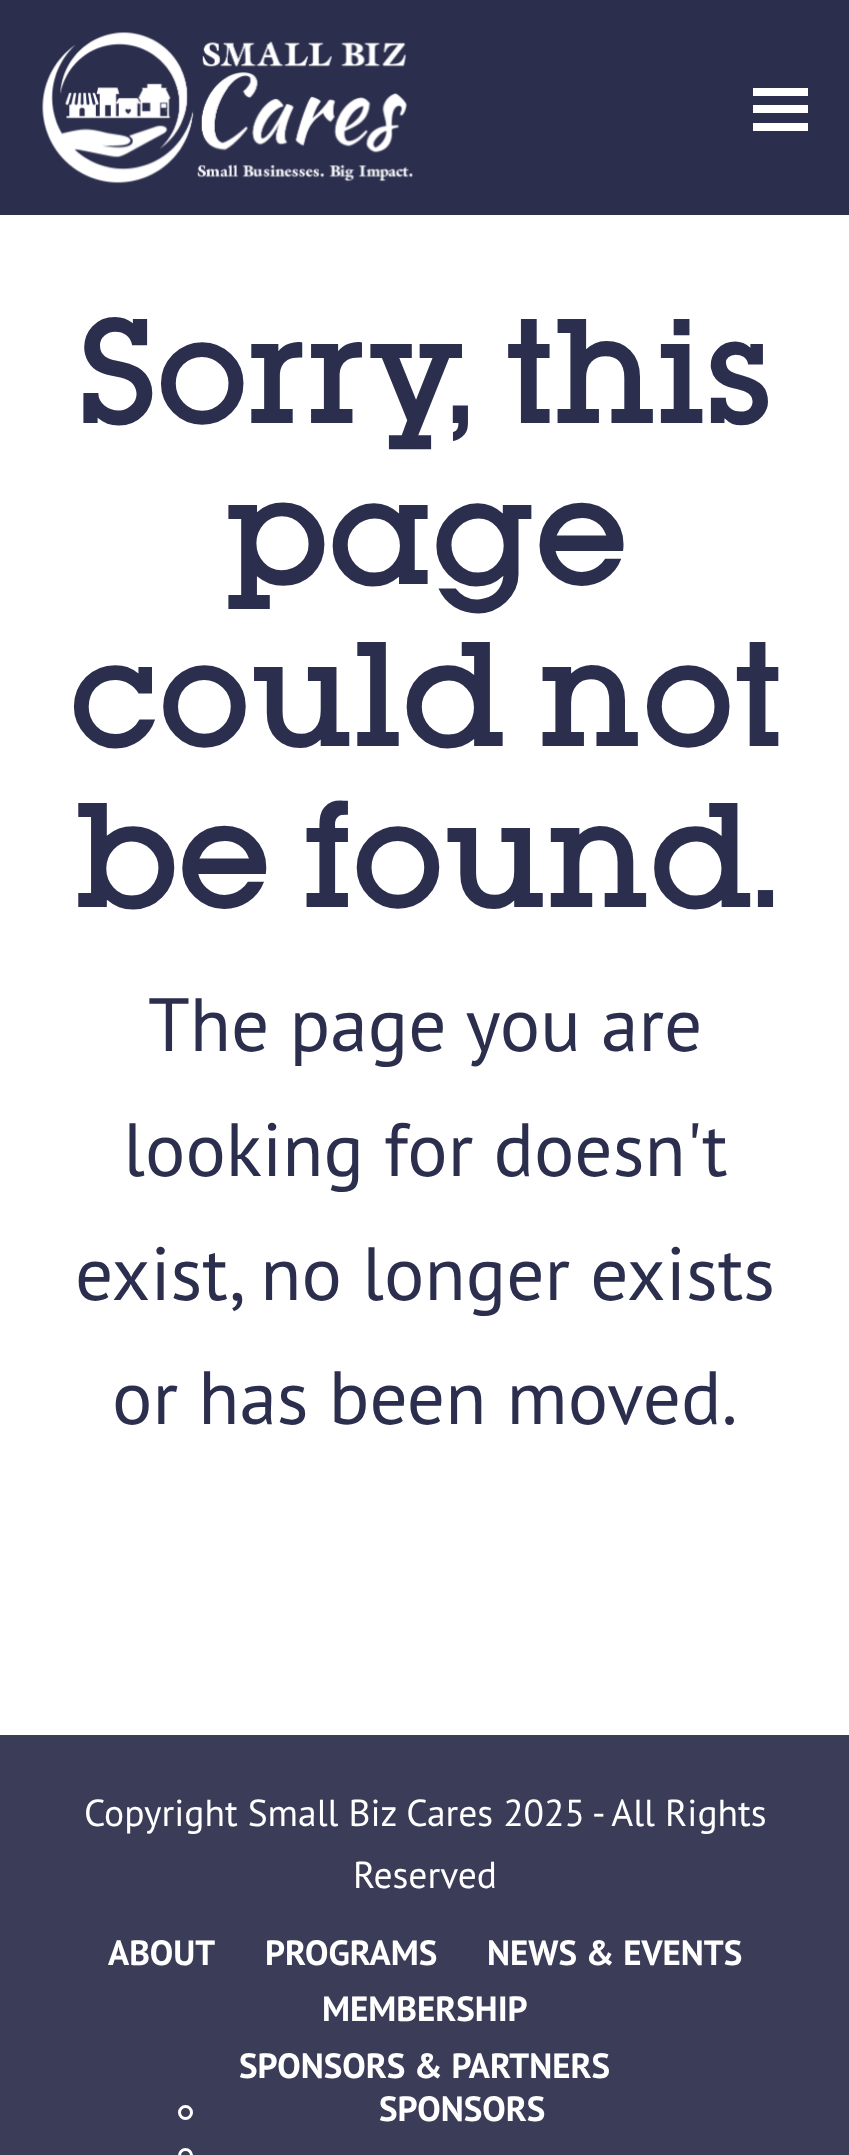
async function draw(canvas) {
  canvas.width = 849
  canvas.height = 2155
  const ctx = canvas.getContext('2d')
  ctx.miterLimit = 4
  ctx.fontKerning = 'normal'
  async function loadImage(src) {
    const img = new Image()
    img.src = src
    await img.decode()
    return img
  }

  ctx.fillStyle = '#fff'
  ctx.fillRect(0, 0, 849, 2155)
  ctx.fillStyle = '#2c2e4e'
  ctx.fillRect(0, 0, 849, 215)
  ctx.drawImage(await loadImage('image0.png'), 42, 32, 371, 152)
  ctx.fillStyle = '#fff'
  ctx.fillRect(753, 105, 55, 8)
  ctx.fillRect(753, 88, 55, 8)
  ctx.fillRect(753, 123, 55, 8)
  ctx.font = '500 129.25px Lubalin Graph'
  ctx.fillStyle = '#2c2e4e'
  ctx.fillText('Sorry, this', 79, 423)
  ctx.fillText('page', 224, 584)
  ctx.fillText('could not', 69, 746)
  ctx.fillText('be found.', 73, 907)
  ctx.font = '75.4px PT Sans'
  ctx.fillText('The page you are', 148, 1051)
  ctx.fillText('looking for doesn\'t', 123, 1176)
  ctx.fillText('exist, no longer exists', 75, 1300)
  ctx.fillText('or has been moved.', 112, 1424)
  ctx.fillStyle = '#3b3c58'
  ctx.fillRect(0, 1735, 849, 420)
  ctx.font = '37.5px PT Sans'
  ctx.fillStyle = '#fff'
  ctx.fillText('Copyright Small Biz Cares 2025 - All Rights', 84, 1826)
  ctx.fillText('Reserved', 353, 1888)
  ctx.font = 'bold 35px PT Sans'
  ctx.fillText('ABOUT', 108, 1965)
  ctx.fillText('PROGRAMS', 265, 1965)
  ctx.fillText('NEWS & EVENTS', 487, 1965)
  ctx.fillText('MEMBERSHIP', 322, 2021)
  ctx.fillText('SPONSORS & PARTNERS', 239, 2078)
  ctx.beginPath()
  ctx.arc(185.5, 2112.5, 6, 0, 2 * Math.PI)
  ctx.strokeStyle = '#fff'
  ctx.lineWidth = 3
  ctx.stroke()
  ctx.fillText('SPONSORS', 379, 2121)
  ctx.beginPath()
  ctx.arc(185.5, 2155.5, 6, 0, 2 * Math.PI)
  ctx.stroke()
}

draw(document.querySelector('canvas'))
